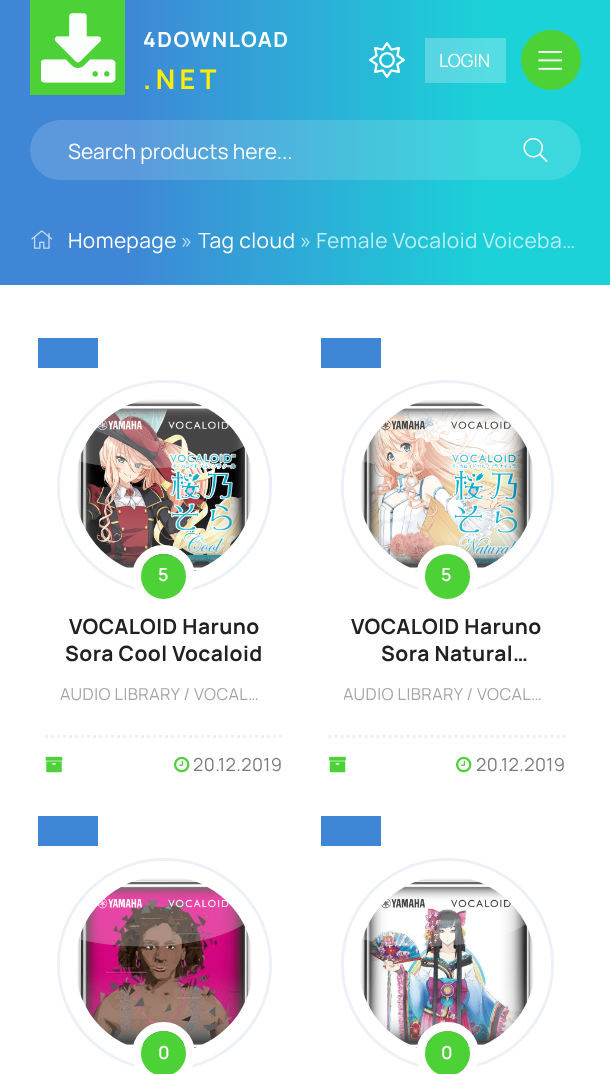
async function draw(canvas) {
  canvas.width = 610
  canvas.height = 1074
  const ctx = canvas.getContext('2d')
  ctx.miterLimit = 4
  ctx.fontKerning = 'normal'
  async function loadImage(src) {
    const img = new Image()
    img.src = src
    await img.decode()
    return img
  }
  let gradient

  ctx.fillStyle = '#fff'
  ctx.fillRect(0, 0, 610, 1074)
  gradient = ctx.createLinearGradient(0, 210, 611, 210)
  gradient.addColorStop(0.2, '#3f86d6')
  gradient.addColorStop(0.8, '#1bd2d8')
  ctx.fillStyle = gradient
  ctx.fillRect(0, 0, 610, 225)
  gradient = ctx.createLinearGradient(0, 210, 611, 210)
  gradient.addColorStop(0.2, '#6fa4e0')
  gradient.addColorStop(0.8, '#54dde2')
  ctx.fillStyle = gradient
  ctx.fillRect(425, 38, 81, 45)
  ctx.fillStyle = '#4cd137'
  ctx.fillRect(30, 0, 95, 95)
  ctx.drawImage(await loadImage('image0.png'), 41, 13, 75, 70)
  ctx.letterSpacing = '1.5px'
  ctx.font = '200 21px "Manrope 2"'
  ctx.fillStyle = '#fff'
  ctx.fillText('4DOWNLOAD', 143, 47)
  ctx.letterSpacing = '4.5px'
  ctx.font = '200 27px "Manrope 2"'
  ctx.fillStyle = '#fded05'
  ctx.fillText('.NET', 143, 89)
  ctx.drawImage(await loadImage('image1.png'), 369, 42, 36, 36)
  ctx.letterSpacing = '0px'
  ctx.font = '200 18px Manrope'
  ctx.fillStyle = '#fff'
  ctx.fillText('LOGIN', 439, 67)
  ctx.fillStyle = '#4cd137'
  ctx.beginPath()
  ctx.arc(551, 60, 30, 0, 2 * Math.PI)
  ctx.fill()
  ctx.drawImage(await loadImage('image2.png'), 538, 51, 25, 19)
  ctx.fillStyle = '#ffffff26'
  ctx.beginPath()
  ctx.roundRect(30, 120, 551, 60, 30)
  ctx.fill()
  ctx.font = '200 21px Manrope'
  ctx.fillStyle = '#fff'
  ctx.fillText('Search products here...', 68, 159)
  ctx.drawImage(await loadImage('image3.png'), 523, 138, 25, 24)
  gradient = ctx.createLinearGradient(0, 330, 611, 330)
  gradient.addColorStop(0.2, '#3f86d6')
  gradient.addColorStop(0.8, '#1bd2d8')
  ctx.fillStyle = gradient
  ctx.fillRect(0, 225, 610, 60)
  ctx.drawImage(await loadImage('image4.png'), 31, 230, 22, 19)
  ctx.letterSpacing = '0.45px'
  ctx.fillStyle = '#fff'
  ctx.fillText('Homepage', 68, 248)
  ctx.fillStyle = '#c4dff3'
  ctx.fillText('»', 181, 248)
  ctx.fillStyle = '#fff'
  ctx.fillText('Tag cloud', 198, 248)
  ctx.fillStyle = '#bceef3'
  ctx.fillText('» Female Vocaloid Voiceba…', 300, 248)
  ctx.fillStyle = '#3f86d6'
  ctx.fillRect(38, 338, 60, 30)
  ctx.beginPath()
  ctx.roundRect(58.5, 381.5, 212, 211, 105.5)
  ctx.strokeStyle = '#ecf1f7'
  ctx.lineWidth = 3
  ctx.stroke()
  ctx.beginPath()
  ctx.roundRect(67.5, 390.5, 194, 193, 96.5)
  ctx.strokeStyle = '#fff'
  ctx.lineWidth = 15
  ctx.stroke()
  ctx.drawImage(await loadImage('image5.png'), 76, 399, 176, 175)
  ctx.beginPath()
  ctx.arc(163.5, 576.5, 27, 0, 2 * Math.PI)
  ctx.lineWidth = 9
  ctx.stroke()
  ctx.fillStyle = '#4cd137'
  ctx.beginPath()
  ctx.arc(163.5, 576.5, 22.5, 0, 2 * Math.PI)
  ctx.fill()
  ctx.font = '200 18px "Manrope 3"'
  ctx.fillStyle = '#fff'
  ctx.fillText('5', 158, 581)
  ctx.font = '200 21px "Manrope 2"'
  ctx.fillStyle = '#212121'
  ctx.fillText('VOCALOID Haruno', 69, 634)
  ctx.fillText('Sora Cool Vocaloid', 65, 661)
  ctx.font = '200 16.5px Manrope'
  ctx.fillStyle = '#a5a5a5'
  ctx.fillText('AUDIO LIBRARY / VOCAL…', 60, 700)
  ctx.beginPath()
  ctx.moveTo(45, 736.5)
  ctx.lineTo(283.5, 736.5)
  ctx.strokeStyle = '#ecf1f7'
  ctx.lineWidth = 3
  ctx.setLineDash([3, 3])
  ctx.stroke()
  ctx.drawImage(await loadImage('image6.png'), 45, 756, 18, 17)
  ctx.drawImage(await loadImage('image7.png'), 174, 756, 16, 17)
  ctx.font = '200 18px Manrope'
  ctx.fillStyle = '#7a7a7a'
  ctx.fillText('20.12.2019', 193, 771)
  ctx.fillStyle = '#3f86d6'
  ctx.fillRect(321, 338, 60, 30)
  ctx.beginPath()
  ctx.roundRect(342.5, 381.5, 210, 211, 105)
  ctx.setLineDash([])
  ctx.stroke()
  ctx.beginPath()
  ctx.roundRect(351.5, 390.5, 192, 193, 96)
  ctx.strokeStyle = '#fff'
  ctx.lineWidth = 15
  ctx.stroke()
  ctx.drawImage(await loadImage('image8.png'), 360, 400, 174, 174)
  ctx.beginPath()
  ctx.arc(447.5, 576.5, 27, 0, 2 * Math.PI)
  ctx.lineWidth = 9
  ctx.stroke()
  ctx.fillStyle = '#4cd137'
  ctx.beginPath()
  ctx.arc(447.5, 576.5, 22.5, 0, 2 * Math.PI)
  ctx.fill()
  ctx.font = '200 18px "Manrope 3"'
  ctx.fillStyle = '#fff'
  ctx.fillText('5', 441, 581)
  ctx.font = '200 21px "Manrope 2"'
  ctx.fillStyle = '#212121'
  ctx.fillText('VOCALOID Haruno', 351, 634)
  ctx.fillText('Sora Natural…', 381, 661)
  ctx.save()
  ctx.beginPath()
  ctx.rect(344, 683, 207, 22)
  ctx.clip()
  ctx.font = '200 16.5px Manrope'
  ctx.fillStyle = '#a5a5a5'
  ctx.fillText('AUDIO LIBRARY / VOCAL…', 343, 700)
  ctx.restore()
  ctx.beginPath()
  ctx.moveTo(328.5, 736.5)
  ctx.lineTo(565.5, 736.5)
  ctx.strokeStyle = '#ecf1f7'
  ctx.lineWidth = 3
  ctx.setLineDash([3, 3])
  ctx.stroke()
  ctx.drawImage(await loadImage('image9.png'), 329, 756, 17, 17)
  ctx.drawImage(await loadImage('image7.png'), 456, 756, 16, 17)
  ctx.font = '200 18px Manrope'
  ctx.fillStyle = '#7a7a7a'
  ctx.fillText('20.12.2019', 476, 771)
  ctx.fillStyle = '#3f86d6'
  ctx.fillRect(38, 816, 60, 30)
  ctx.beginPath()
  ctx.roundRect(58.5, 859.5, 212, 210, 105)
  ctx.setLineDash([])
  ctx.stroke()
  ctx.beginPath()
  ctx.roundRect(67.5, 868.5, 194, 192, 96)
  ctx.strokeStyle = '#fff'
  ctx.lineWidth = 15
  ctx.stroke()
  ctx.drawImage(await loadImage('image10.png'), 77, 878, 175, 173)
  ctx.beginPath()
  ctx.arc(163.5, 1053.5, 27, 0, 2 * Math.PI)
  ctx.lineWidth = 9
  ctx.stroke()
  ctx.fillStyle = '#4cd137'
  ctx.beginPath()
  ctx.arc(163.5, 1053.5, 22.5, 0, 2 * Math.PI)
  ctx.fill()
  ctx.font = '200 18px "Manrope 3"'
  ctx.fillStyle = '#fff'
  ctx.fillText('0', 158, 1059)
  ctx.fillStyle = '#3f86d6'
  ctx.fillRect(321, 816, 60, 30)
  ctx.beginPath()
  ctx.arc(447.5, 964.5, 105, 0, 2 * Math.PI)
  ctx.strokeStyle = '#ecf1f7'
  ctx.lineWidth = 3
  ctx.stroke()
  ctx.beginPath()
  ctx.arc(447.5, 964.5, 96, 0, 2 * Math.PI)
  ctx.strokeStyle = '#fff'
  ctx.lineWidth = 15
  ctx.stroke()
  ctx.drawImage(await loadImage('image11.png'), 360, 878, 174, 173)
  ctx.beginPath()
  ctx.arc(447.5, 1053.5, 27, 0, 2 * Math.PI)
  ctx.lineWidth = 9
  ctx.stroke()
  ctx.fillStyle = '#4cd137'
  ctx.beginPath()
  ctx.arc(447.5, 1053.5, 22.5, 0, 2 * Math.PI)
  ctx.fill()
  ctx.fillStyle = '#fff'
  ctx.fillText('0', 441, 1059)
}

draw(document.querySelector('canvas'))
